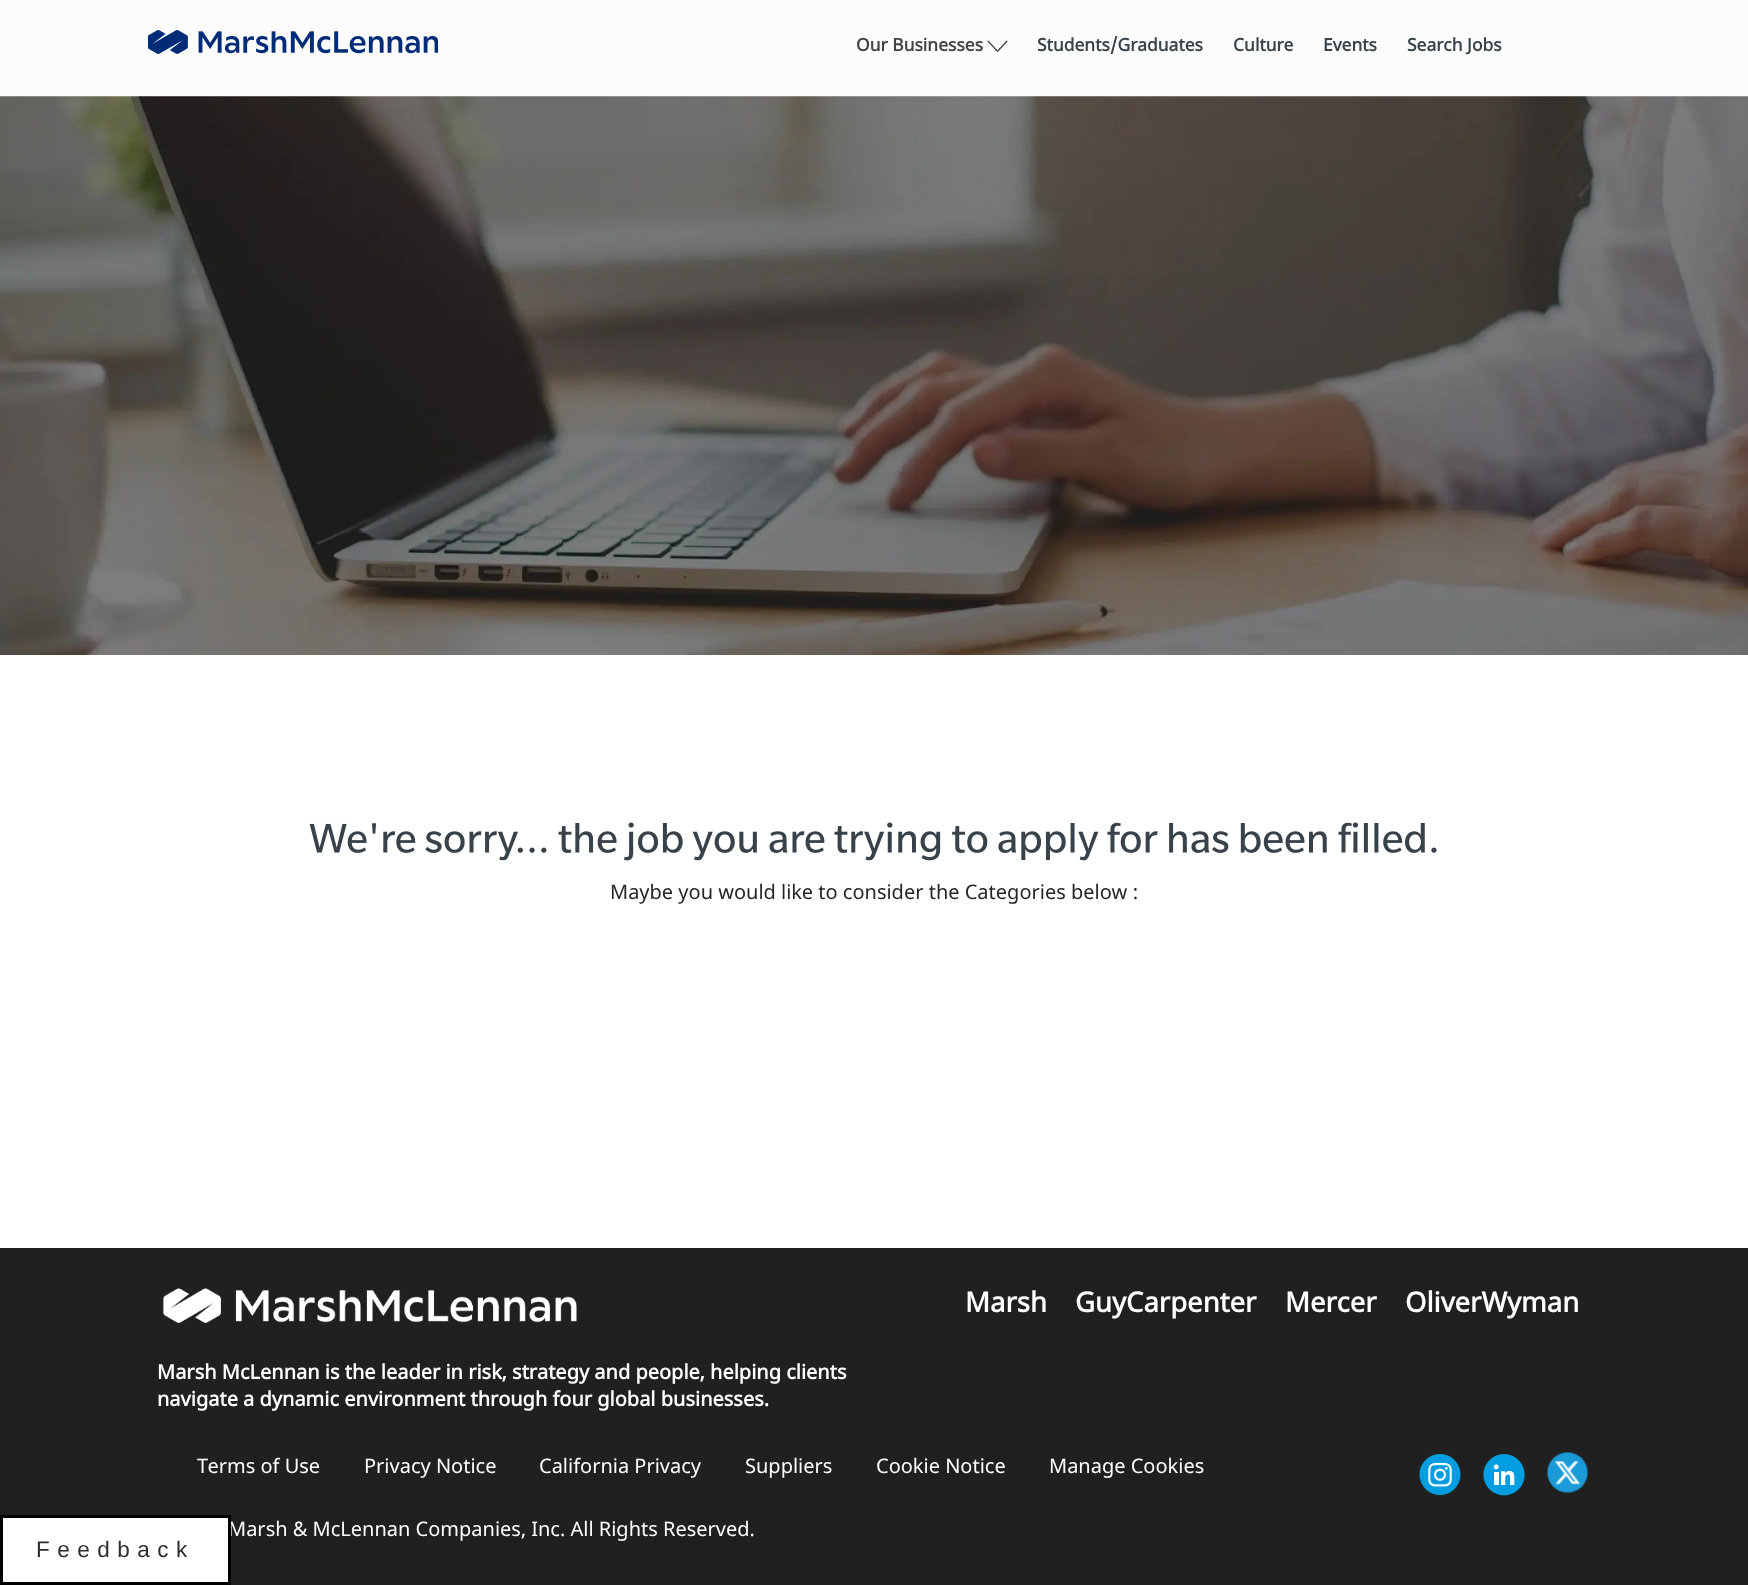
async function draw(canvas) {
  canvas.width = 1748
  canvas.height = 1585
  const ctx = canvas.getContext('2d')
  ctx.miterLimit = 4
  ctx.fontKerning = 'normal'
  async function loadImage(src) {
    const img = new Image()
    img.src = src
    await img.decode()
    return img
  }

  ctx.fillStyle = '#fff'
  ctx.fillRect(0, 0, 1748, 1585)
  ctx.fillStyle = '#fcfcfc'
  ctx.fillRect(0, 0, 1748, 96)
  ctx.drawImage(await loadImage('image0.png'), 148, 30, 290, 24)
  ctx.font = 'bold 17.5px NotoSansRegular'
  ctx.fillStyle = '#424242'
  ctx.fillText('Our Businesses', 856, 51)
  ctx.drawImage(await loadImage('image1.png'), 987, 40, 21, 12)
  ctx.fillStyle = '#37424a'
  ctx.fillText('Students/Graduates', 1037, 51)
  ctx.fillText('Culture', 1233, 51)
  ctx.fillText('Events', 1323, 51)
  ctx.fillText('Search Jobs', 1407, 51)
  ctx.drawImage(await loadImage('image2.png'), 0, 96, 1748, 559)
  ctx.drawImage(await loadImage('image3.png'), 309, 822, 1128, 39)
  ctx.font = '20px NotoSansRegular'
  ctx.fillStyle = '#262626'
  ctx.fillText('Maybe you would like to consider the Categories below :', 610, 899)
  ctx.fillStyle = '#202020'
  ctx.fillRect(0, 1248, 1748, 337)
  ctx.font = 'bold 27.5px NotoSansRegular'
  ctx.fillStyle = '#fff'
  ctx.fillText('Marsh', 965, 1312)
  ctx.fillText('GuyCarpenter', 1075, 1312)
  ctx.fillText('Mercer', 1285, 1312)
  ctx.fillText('OliverWyman', 1405, 1312)
  ctx.drawImage(await loadImage('image4.png'), 163, 1288, 414, 35)
  ctx.font = 'bold 20px NotoSansRegular'
  ctx.fillText('Marsh McLennan is the leader in risk, strategy and people, helping clients', 157, 1379)
  ctx.fillText('navigate a dynamic environment through four global businesses.', 157, 1406)
  ctx.font = '20px NotoSansRegular'
  ctx.fillText('Terms of Use', 197, 1473)
  ctx.fillText('Privacy Notice', 364, 1473)
  ctx.fillText('California Privacy', 539, 1473)
  ctx.fillText('Suppliers', 745, 1473)
  ctx.fillText('Cookie Notice', 876, 1473)
  ctx.fillText('Manage Cookies', 1049, 1473)
  ctx.drawImage(await loadImage('image5.png'), 1419, 1454, 42, 41)
  ctx.drawImage(await loadImage('image6.png'), 1483, 1454, 42, 42)
  ctx.drawImage(await loadImage('image7.png'), 1547, 1452, 41, 41)
  ctx.fillText('Marsh & McLennan Companies, Inc. All Rights Reserved.', 228, 1536)
  ctx.beginPath()
  ctx.rect(1.5, 1516.5, 228, 67)
  ctx.fill()
  ctx.strokeStyle = '#000'
  ctx.lineWidth = 3
  ctx.stroke()
  ctx.letterSpacing = '7.5px'
  ctx.font = '22.5px Liberation Sans'
  ctx.fillStyle = '#2d2d2d'
  ctx.fillText('Feedback', 36, 1557)
}

draw(document.querySelector('canvas'))
